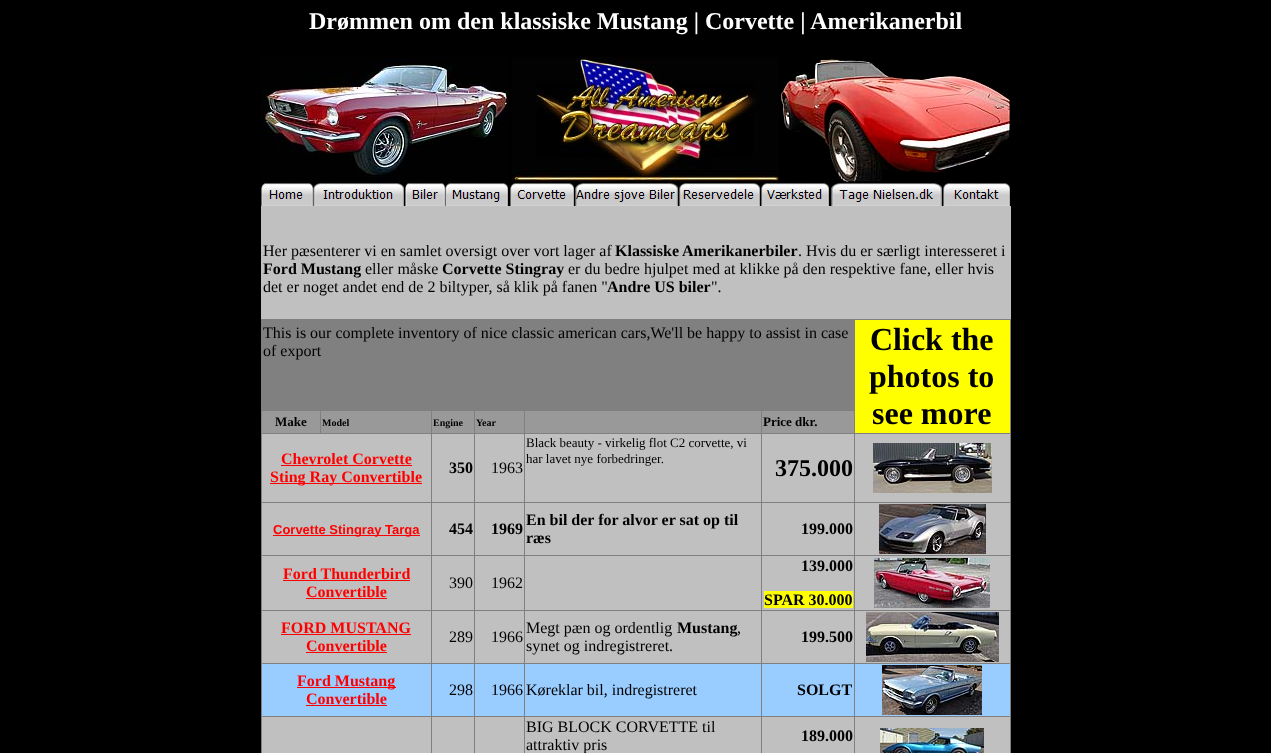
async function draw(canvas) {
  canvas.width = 1271
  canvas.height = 753
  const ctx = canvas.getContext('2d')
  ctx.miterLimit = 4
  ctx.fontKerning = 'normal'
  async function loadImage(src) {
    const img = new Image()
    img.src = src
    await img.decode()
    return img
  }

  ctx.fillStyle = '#000'
  ctx.fillRect(0, 0, 1271, 753)
  ctx.font = 'bold 24px Liberation Serif'
  ctx.fillStyle = '#fff'
  ctx.fillText('Drømmen om den klassiske Mustang | Corvette | Amerikanerbil', 309, 29)
  ctx.drawImage(await loadImage('image0.png'), 261, 57, 248, 125)
  ctx.drawImage(await loadImage('image1.png'), 512, 57, 267, 125)
  ctx.drawImage(await loadImage('image2.png'), 781, 57, 229, 125)
  ctx.drawImage(await loadImage('image3.png'), 261, 183, 52, 23)
  ctx.drawImage(await loadImage('image4.png'), 313, 183, 91, 23)
  ctx.drawImage(await loadImage('image5.png'), 405, 183, 40, 23)
  ctx.drawImage(await loadImage('image6.png'), 445, 183, 63, 23)
  ctx.drawImage(await loadImage('image7.png'), 510, 183, 64, 23)
  ctx.drawImage(await loadImage('image8.png'), 575, 183, 103, 23)
  ctx.drawImage(await loadImage('image9.png'), 679, 183, 81, 23)
  ctx.drawImage(await loadImage('image10.png'), 761, 183, 68, 23)
  ctx.drawImage(await loadImage('image11.png'), 831, 183, 111, 23)
  ctx.drawImage(await loadImage('image12.png'), 943, 183, 67, 23)
  ctx.fillStyle = '#c0c0c0'
  ctx.fillRect(261, 206, 750, 1)
  ctx.fillRect(1010, 206, 1, 113)
  ctx.fillRect(261, 207, 749, 112)
  ctx.font = '16px Liberation Serif'
  ctx.fillStyle = '#000'
  ctx.fillText('Her pæsenterer vi en samlet oversigt over vort lager af', 263, 256)
  ctx.font = 'bold 16px Liberation Serif'
  ctx.fillText('Klassiske', 615, 256)
  ctx.fillText('Amerikanerbiler', 682, 256)
  ctx.font = '16px Liberation Serif'
  ctx.fillText('. Hvis du er særligt interesseret i', 798, 256)
  ctx.font = 'bold 16px Liberation Serif'
  ctx.fillText('Ford Mustang', 263, 274)
  ctx.font = '16px Liberation Serif'
  ctx.fillText('eller måske', 365, 274)
  ctx.font = 'bold 16px Liberation Serif'
  ctx.fillText('Corvette Stingray', 442, 274)
  ctx.font = '16px Liberation Serif'
  ctx.fillText('er du bedre hjulpet med at klikke på den respektive fane, eller hvis', 568, 274)
  ctx.fillText('det er noget andet end de 2 biltyper, så klik på fanen "', 263, 292)
  ctx.font = 'bold 16px Liberation Serif'
  ctx.fillText('Andre US biler', 607, 292)
  ctx.font = '16px Liberation Serif'
  ctx.fillText('".', 711, 292)
  ctx.fillStyle = '#808080'
  ctx.fillRect(261, 319, 750, 434)
  ctx.fillStyle = '#000'
  ctx.fillText('This is our complete inventory of nice classic american cars,We\'ll be happy to assist in case', 263, 338)
  ctx.fillText('of export', 263, 356)
  ctx.fillStyle = '#ff0'
  ctx.fillRect(855, 320, 155, 113)
  ctx.font = 'bold 32px Liberation Serif'
  ctx.fillStyle = '#000'
  ctx.fillText('Click the', 870, 350)
  ctx.fillText('photos to', 869, 387)
  ctx.fillText('see more', 872, 424)
  ctx.fillStyle = '#999'
  ctx.fillRect(262, 411, 58, 22)
  ctx.font = 'bold 13px Liberation Serif'
  ctx.fillStyle = '#000'
  ctx.fillText('Make', 275, 426)
  ctx.fillStyle = '#999'
  ctx.fillRect(321, 411, 110, 22)
  ctx.font = 'bold 10px Liberation Serif'
  ctx.fillStyle = '#000'
  ctx.fillText('Model', 322, 426)
  ctx.fillStyle = '#999'
  ctx.fillRect(432, 411, 42, 22)
  ctx.fillStyle = '#000'
  ctx.fillText('Engine', 433, 426)
  ctx.fillStyle = '#999'
  ctx.fillRect(475, 411, 49, 22)
  ctx.fillStyle = '#000'
  ctx.fillText('Year', 476, 426)
  ctx.fillStyle = '#999'
  ctx.fillRect(525, 411, 236, 22)
  ctx.fillRect(762, 411, 92, 22)
  ctx.font = 'bold 13px Liberation Serif'
  ctx.fillStyle = '#000'
  ctx.fillText('Price dkr.', 763, 426)
  ctx.fillStyle = '#c0c0c0'
  ctx.fillRect(262, 434, 169, 68)
  ctx.font = 'bold 16px Liberation Serif'
  ctx.fillStyle = '#f00'
  ctx.fillText('Chevrolet Corvette', 281, 464)
  ctx.fillRect(281, 465, 131, 1)
  ctx.fillRect(270, 483, 152, 1)
  ctx.fillText('Sting Ray Convertible', 270, 482)
  ctx.fillStyle = '#c0c0c0'
  ctx.fillRect(432, 434, 42, 68)
  ctx.fillStyle = '#000'
  ctx.fillText('350', 449, 473)
  ctx.fillStyle = '#c0c0c0'
  ctx.fillRect(475, 434, 49, 68)
  ctx.font = '16px Liberation Serif'
  ctx.fillStyle = '#000'
  ctx.fillText('1963', 491, 473)
  ctx.fillStyle = '#c0c0c0'
  ctx.fillRect(525, 434, 236, 68)
  ctx.font = '13px Liberation Serif'
  ctx.fillStyle = '#000'
  ctx.fillText('Black beauty - virkelig flot C2 corvette, vi', 526, 447)
  ctx.fillText('har lavet nye forbedringer.', 526, 463)
  ctx.fillStyle = '#c0c0c0'
  ctx.fillRect(762, 434, 92, 68)
  ctx.font = 'bold 24px Liberation Serif'
  ctx.fillStyle = '#000'
  ctx.fillText('375.000', 775, 476)
  ctx.fillStyle = '#c0c0c0'
  ctx.fillRect(855, 434, 155, 68)
  ctx.drawImage(await loadImage('image13.png'), 873, 443, 119, 50)
  ctx.fillRect(262, 503, 169, 52)
  ctx.fillStyle = '#f00'
  ctx.fillRect(273, 535, 147, 1)
  ctx.font = 'bold 13px Liberation Sans'
  ctx.fillText('Corvette Stingray Targa', 273, 534)
  ctx.fillStyle = '#c0c0c0'
  ctx.fillRect(432, 503, 42, 52)
  ctx.font = 'bold 16px Liberation Serif'
  ctx.fillStyle = '#000'
  ctx.fillText('454', 449, 534)
  ctx.fillStyle = '#c0c0c0'
  ctx.fillRect(475, 503, 49, 52)
  ctx.fillStyle = '#000'
  ctx.fillText('1969', 491, 534)
  ctx.fillStyle = '#c0c0c0'
  ctx.fillRect(525, 503, 236, 52)
  ctx.fillStyle = '#000'
  ctx.fillText('En bil der for alvor er sat op til', 526, 525)
  ctx.fillText('ræs', 526, 543)
  ctx.fillStyle = '#c0c0c0'
  ctx.fillRect(762, 503, 92, 52)
  ctx.fillStyle = '#000'
  ctx.fillText('199.000', 801, 534)
  ctx.fillStyle = '#c0c0c0'
  ctx.fillRect(855, 503, 155, 52)
  ctx.drawImage(await loadImage('image14.png'), 879, 504, 107, 50)
  ctx.fillRect(262, 556, 169, 54)
  ctx.fillStyle = '#f00'
  ctx.fillText('Ford Thunderbird', 283, 579)
  ctx.fillRect(283, 580, 127, 1)
  ctx.fillText('Convertible', 306, 597)
  ctx.fillRect(306, 598, 81, 1)
  ctx.fillStyle = '#c0c0c0'
  ctx.fillRect(432, 556, 42, 54)
  ctx.font = '16px Liberation Serif'
  ctx.fillStyle = '#000'
  ctx.fillText('390', 449, 588)
  ctx.fillStyle = '#c0c0c0'
  ctx.fillRect(475, 556, 49, 54)
  ctx.fillStyle = '#000'
  ctx.fillText('1962', 491, 588)
  ctx.fillStyle = '#c0c0c0'
  ctx.fillRect(525, 556, 236, 54)
  ctx.fillRect(762, 556, 92, 54)
  ctx.font = 'bold 16px Liberation Serif'
  ctx.fillStyle = '#000'
  ctx.fillText('139.000', 801, 571)
  ctx.fillStyle = '#ff0'
  ctx.fillRect(764, 591, 89, 17)
  ctx.fillStyle = '#000'
  ctx.fillText('SPAR 30.000', 764, 605)
  ctx.fillStyle = '#c0c0c0'
  ctx.fillRect(855, 556, 155, 54)
  ctx.drawImage(await loadImage('image15.png'), 874, 558, 116, 50)
  ctx.fillRect(262, 611, 169, 52)
  ctx.fillStyle = '#f00'
  ctx.fillText('FORD MUSTANG', 281, 633)
  ctx.fillRect(281, 634, 130, 1)
  ctx.fillText('Convertible', 306, 651)
  ctx.fillRect(306, 652, 81, 1)
  ctx.fillStyle = '#c0c0c0'
  ctx.fillRect(432, 611, 42, 52)
  ctx.font = '16px Liberation Serif'
  ctx.fillStyle = '#000'
  ctx.fillText('289', 449, 642)
  ctx.fillStyle = '#c0c0c0'
  ctx.fillRect(475, 611, 49, 52)
  ctx.fillStyle = '#000'
  ctx.fillText('1966', 491, 642)
  ctx.fillStyle = '#c0c0c0'
  ctx.fillRect(525, 611, 236, 52)
  ctx.fillStyle = '#000'
  ctx.fillText('Megt pæn og ordentlig', 526, 633)
  ctx.font = 'bold 16px Liberation Serif'
  ctx.fillText('Mustang', 677, 633)
  ctx.font = '16px Liberation Serif'
  ctx.fillText(',', 737, 633)
  ctx.fillText('synet og indregistreret.', 526, 651)
  ctx.fillStyle = '#c0c0c0'
  ctx.fillRect(762, 611, 92, 52)
  ctx.font = 'bold 16px Liberation Serif'
  ctx.fillStyle = '#000'
  ctx.fillText('199.500', 801, 642)
  ctx.fillStyle = '#c0c0c0'
  ctx.fillRect(855, 611, 155, 52)
  ctx.drawImage(await loadImage('image16.png'), 866, 612, 133, 50)
  ctx.fillStyle = '#9cf'
  ctx.fillRect(262, 664, 169, 52)
  ctx.fillStyle = '#f00'
  ctx.fillRect(297, 687, 99, 1)
  ctx.fillText('Ford Mustang', 297, 686)
  ctx.fillText('Convertible', 306, 704)
  ctx.fillRect(306, 705, 81, 1)
  ctx.fillStyle = '#9cf'
  ctx.fillRect(432, 664, 42, 52)
  ctx.font = '16px Liberation Serif'
  ctx.fillStyle = '#000'
  ctx.fillText('298', 449, 695)
  ctx.fillStyle = '#9cf'
  ctx.fillRect(475, 664, 49, 52)
  ctx.fillStyle = '#000'
  ctx.fillText('1966', 491, 695)
  ctx.fillStyle = '#9cf'
  ctx.fillRect(525, 664, 236, 52)
  ctx.fillStyle = '#000'
  ctx.fillText('Køreklar bil, indregistreret', 526, 695)
  ctx.fillStyle = '#9cf'
  ctx.fillRect(762, 664, 92, 52)
  ctx.font = 'bold 16px Liberation Serif'
  ctx.fillStyle = '#000'
  ctx.fillText('SOLGT', 797, 695)
  ctx.fillStyle = '#9cf'
  ctx.fillRect(855, 664, 155, 52)
  ctx.drawImage(await loadImage('image17.png'), 882, 665, 100, 50)
  ctx.fillStyle = '#c0c0c0'
  ctx.fillRect(262, 717, 169, 36)
  ctx.fillRect(432, 717, 42, 36)
  ctx.fillRect(475, 717, 49, 36)
  ctx.fillRect(525, 717, 236, 36)
  ctx.font = '16px Liberation Serif'
  ctx.fillStyle = '#000'
  ctx.fillText('BIG BLOCK CORVETTE til', 526, 732)
  ctx.fillText('attraktiv pris', 526, 750)
  ctx.fillStyle = '#c0c0c0'
  ctx.fillRect(762, 717, 92, 36)
  ctx.font = 'bold 16px Liberation Serif'
  ctx.fillStyle = '#000'
  ctx.fillText('189.000', 801, 741)
  ctx.fillStyle = '#c0c0c0'
  ctx.fillRect(855, 717, 155, 36)
  ctx.drawImage(await loadImage('image18.png'), 880, 728, 104, 25)
}

draw(document.querySelector('canvas'))
